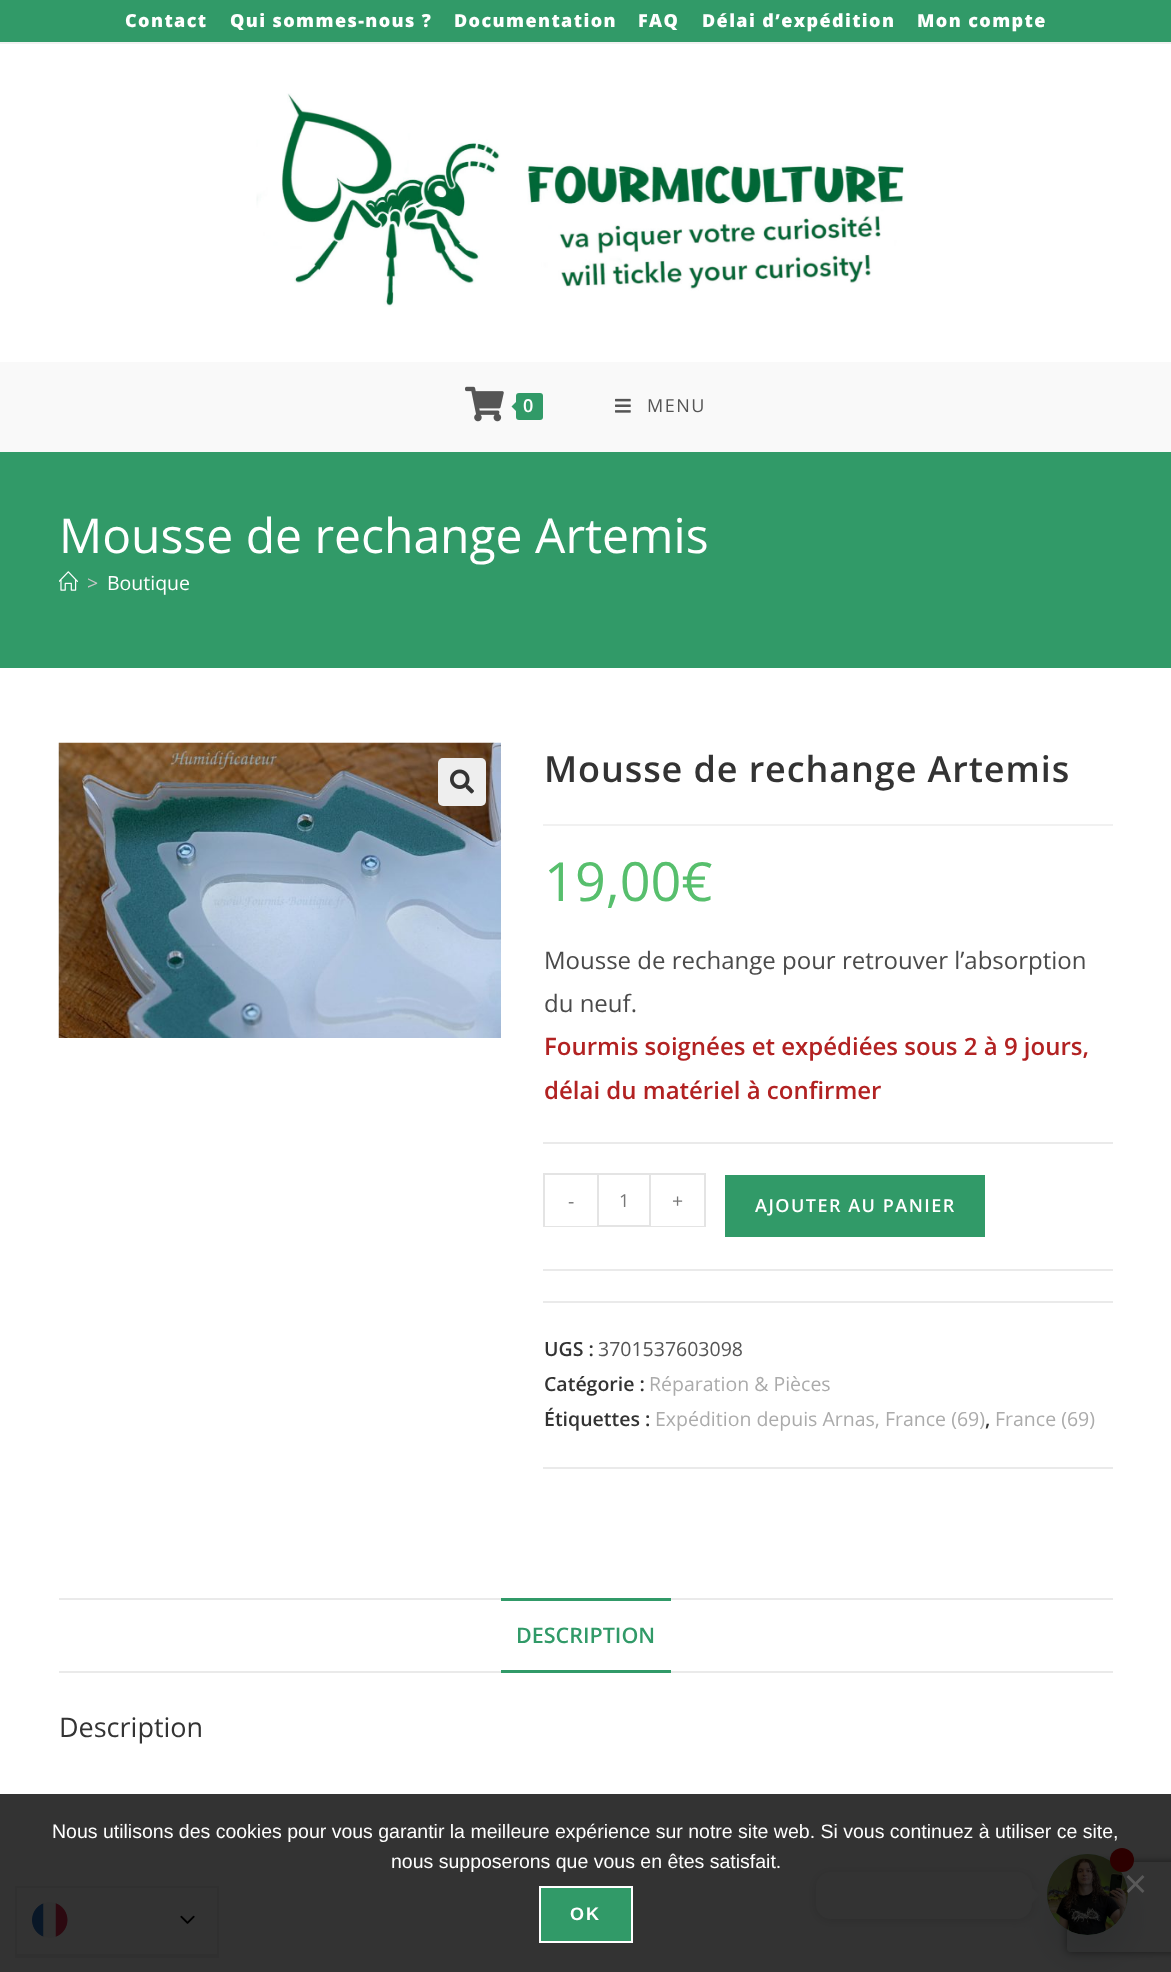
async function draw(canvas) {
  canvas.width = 1171
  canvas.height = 1972
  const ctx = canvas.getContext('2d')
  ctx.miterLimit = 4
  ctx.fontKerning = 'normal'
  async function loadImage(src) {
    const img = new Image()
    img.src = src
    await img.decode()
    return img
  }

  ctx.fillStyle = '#fff'
  ctx.fillRect(0, 0, 1171, 1972)
  ctx.fillStyle = '#319a68'
  ctx.fillRect(0, 0, 1171, 42)
  ctx.fillStyle = '#f1f1f1'
  ctx.fillRect(0, 42, 1171, 2)
  ctx.letterSpacing = '1.4px'
  ctx.font = '800 18px Open Sans'
  ctx.fillStyle = '#fff'
  ctx.fillText('Contact', 125, 27)
  ctx.fillText('Qui sommes-nous ?', 230, 27)
  ctx.fillText('Documentation', 454, 27)
  ctx.fillText('FAQ', 638, 27)
  ctx.fillText('Délai d’expédition', 702, 27)
  ctx.fillText('Mon compte', 917, 27)
  ctx.drawImage(await loadImage('image0.png'), 256, 93, 649, 214)
  ctx.fillStyle = '#f9f9f9'
  ctx.fillRect(0, 362, 1171, 90)
  ctx.drawImage(await loadImage('image1.png'), 465, 386, 39, 36)
  ctx.fillStyle = '#319a68'
  ctx.beginPath()
  ctx.roundRect(516, 393, 27, 27, 3)
  ctx.fill()
  ctx.beginPath()
  ctx.moveTo(519, 399)
  ctx.lineTo(519, 414)
  ctx.lineTo(511.5, 406.5)
  ctx.closePath()
  ctx.fill()
  ctx.letterSpacing = '1.5px'
  ctx.font = '600 18px Open Sans'
  ctx.fillStyle = '#fff'
  ctx.fillText('0', 523, 412)
  ctx.drawImage(await loadImage('image2.png'), 615, 398, 16, 15)
  ctx.font = '18px Open Sans'
  ctx.fillStyle = '#555'
  ctx.fillText('MENU', 647, 412)
  ctx.fillStyle = '#319a68'
  ctx.fillRect(0, 452, 1171, 216)
  ctx.letterSpacing = '0px'
  ctx.font = '48px Open Sans'
  ctx.fillStyle = '#fff'
  ctx.fillText('Mousse de rechange Artemis', 59, 553)
  ctx.drawImage(await loadImage('image3.png'), 59, 571, 19, 20)
  ctx.font = '19.5px Open Sans'
  ctx.fillStyle = '#c6c6c6'
  ctx.fillText('>', 87, 590)
  ctx.fillStyle = '#fff'
  ctx.fillText('Boutique', 107, 590)
  ctx.drawImage(await loadImage('image4.png'), 58, 742, 443, 296)
  ctx.fillStyle = '#eee'
  ctx.beginPath()
  ctx.roundRect(438, 758, 48, 48, 5)
  ctx.fill()
  ctx.drawImage(await loadImage('image5.png'), 450, 769, 24, 25)
  ctx.fillStyle = '#f1f1f1'
  ctx.fillRect(543, 824, 570, 2)
  ctx.letterSpacing = '0.9px'
  ctx.font = '600 36px Open Sans'
  ctx.fillStyle = '#333'
  ctx.fillText('Mousse de rechange Artemis', 544, 782)
  ctx.letterSpacing = '0px'
  ctx.font = '54px Open Sans'
  ctx.fillStyle = '#57bf6d'
  ctx.fillText('19,00€', 544, 901)
  ctx.font = '24px Open Sans'
  ctx.fillStyle = '#4a4a4a'
  ctx.fillText('Mousse de rechange pour retrouver l’absorption', 544, 969)
  ctx.fillText('du neuf.', 544, 1012)
  ctx.font = '600 24px Open Sans'
  ctx.fillStyle = '#b22222'
  ctx.fillText('Fourmis soignées et expédiées sous 2 à 9 jours,', 544, 1055)
  ctx.fillText('délai du matériel à confirmer', 544, 1099)
  ctx.fillStyle = '#eaeaea'
  ctx.fillRect(543, 1142, 570, 2)
  ctx.fillRect(543, 1269, 570, 2)
  ctx.fillStyle = '#e4e4e4'
  ctx.fillRect(543, 1173, 54, 2)
  ctx.fillRect(543, 1226, 54, 1)
  ctx.fillRect(543, 1173, 2, 54)
  ctx.font = '19.5px Open Sans'
  ctx.fillStyle = '#777'
  ctx.fillText('-', 568, 1208)
  ctx.strokeStyle = '#e4e4e4'
  ctx.lineWidth = 2
  ctx.strokeRect(598, 1174, 52, 52)
  ctx.font = '18px Open Sans'
  ctx.fillText('1', 619, 1207)
  ctx.fillStyle = '#e4e4e4'
  ctx.fillRect(651, 1173, 54, 2)
  ctx.fillRect(704, 1173, 2, 54)
  ctx.fillRect(651, 1226, 54, 1)
  ctx.font = '19.5px Open Sans'
  ctx.fillStyle = '#777'
  ctx.fillText('+', 672, 1208)
  ctx.fillStyle = '#319a68'
  ctx.fillRect(725, 1175, 260, 62)
  ctx.letterSpacing = '1.5px'
  ctx.font = '600 18px Open Sans'
  ctx.fillStyle = '#fff'
  ctx.fillText('AJOUTER AU PANIER', 755, 1212)
  ctx.fillStyle = '#eaeaea'
  ctx.fillRect(543, 1301, 570, 2)
  ctx.fillRect(543, 1467, 570, 2)
  ctx.letterSpacing = '0px'
  ctx.font = '600 19.5px Open Sans'
  ctx.fillStyle = '#333'
  ctx.fillText('UGS :', 544, 1356)
  ctx.font = '19.5px Open Sans'
  ctx.fillStyle = '#555'
  ctx.fillText('3701537603098', 598, 1356)
  ctx.font = '600 19.5px Open Sans'
  ctx.fillStyle = '#333'
  ctx.fillText('Catégorie :', 544, 1391)
  ctx.font = '19.5px Open Sans'
  ctx.fillStyle = '#ababab'
  ctx.fillText('Réparation & Pièces', 649, 1391)
  ctx.font = '600 19.5px Open Sans'
  ctx.fillStyle = '#333'
  ctx.fillText('Étiquettes :', 544, 1426)
  ctx.font = '19.5px Open Sans'
  ctx.fillStyle = '#ababab'
  ctx.fillText('Expédition depuis Arnas, France (69)', 655, 1426)
  ctx.font = '600 19.5px Open Sans'
  ctx.fillStyle = '#333'
  ctx.fillText(',', 985, 1426)
  ctx.font = '19.5px Open Sans'
  ctx.fillStyle = '#ababab'
  ctx.fillText('France (69)', 995, 1426)
  ctx.fillStyle = '#eaeaea'
  ctx.fillRect(59, 1598, 1054, 2)
  ctx.fillRect(59, 1671, 1054, 2)
  ctx.fillStyle = '#319a68'
  ctx.fillRect(501, 1598, 170, 3)
  ctx.fillRect(501, 1670, 170, 3)
  ctx.font = '600 21.5px Open Sans'
  ctx.fillText('DESCRIPTION', 516, 1643)
  ctx.font = '27px Open Sans'
  ctx.fillStyle = '#333'
  ctx.fillText('Description', 59, 1737)
  ctx.fillStyle = '#00000026'
  ctx.filter = 'blur(6px)'
  ctx.beginPath()
  ctx.roundRect(816, 1874, 216, 46, 15)
  ctx.fill()
  ctx.filter = 'none'
  ctx.fillStyle = '#fff'
  ctx.beginPath()
  ctx.roundRect(816, 1872, 216, 47, 15)
  ctx.fill()
  ctx.beginPath()
  ctx.moveTo(1032, 1903)
  ctx.lineTo(1032, 1888)
  ctx.lineTo(1039.5, 1895)
  ctx.closePath()
  ctx.fill()
  ctx.fillStyle = '#49687e29'
  ctx.filter = 'blur(18px)'
  ctx.beginPath()
  ctx.roundRect(1047, 1878, 81, 81, 40.5)
  ctx.fill()
  ctx.filter = 'none'
  ctx.save()
  ctx.beginPath()
  ctx.moveTo(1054, 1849)
  ctx.lineTo(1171, 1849)
  ctx.lineTo(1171, 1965)
  ctx.lineTo(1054, 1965)
  ctx.closePath()
  ctx.moveTo(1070, 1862)
  ctx.lineTo(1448, 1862)
  ctx.bezierCurveTo(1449.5, 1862, 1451, 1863.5, 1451, 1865)
  ctx.lineTo(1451, 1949)
  ctx.bezierCurveTo(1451, 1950.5, 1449.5, 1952, 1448, 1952)
  ctx.lineTo(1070, 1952)
  ctx.bezierCurveTo(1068.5, 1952, 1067, 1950.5, 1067, 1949)
  ctx.lineTo(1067, 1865)
  ctx.bezierCurveTo(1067, 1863.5, 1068.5, 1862, 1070, 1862)
  ctx.closePath()
  ctx.clip('evenodd')
  ctx.fillStyle = '#808080'
  ctx.filter = 'blur(4px)'
  ctx.beginPath()
  ctx.roundRect(1067, 1862, 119, 90, 3)
  ctx.fill()
  ctx.filter = 'none'
  ctx.restore()
  ctx.fillStyle = '#86cd91'
  ctx.beginPath()
  ctx.arc(1087.5, 1894.5, 40.5, 0, 2 * Math.PI)
  ctx.fill()
  ctx.drawImage(await loadImage('image6.png'), 1047, 1854, 81, 81)
  ctx.fillStyle = '#d00'
  ctx.beginPath()
  ctx.arc(1122, 1860, 12, 0, 2 * Math.PI)
  ctx.fill()
  ctx.fillStyle = '#eee'
  ctx.fillRect(15, 1956, 204, 2)
  ctx.strokeStyle = '#eee'
  ctx.strokeRect(16, 1887, 202, 68)
  ctx.drawImage(await loadImage('image7.png'), 32, 1902, 36, 36)
  ctx.drawImage(await loadImage('image8.png'), 180, 1915, 15, 9)
  ctx.fillStyle = '#000000cc'
  ctx.fillRect(0, 1794, 1171, 178)
  ctx.font = '19.5px Liberation Sans'
  ctx.fillStyle = '#fff'
  ctx.fillText('Nous utilisons des cookies pour vous garantir la meilleure expérience sur notre site web. Si vous continuez à utiliser ce site,', 52, 1838)
  ctx.fillText('nous supposerons que vous en êtes satisfait.', 391, 1868)
  ctx.fillStyle = '#80808080'
  ctx.beginPath()
  ctx.moveTo(1142.5, 1875)
  ctx.lineTo(1144.5, 1877)
  ctx.lineTo(1128.5, 1893)
  ctx.lineTo(1126.5, 1891)
  ctx.closePath()
  ctx.fill()
  ctx.fillStyle = '#595959'
  ctx.beginPath()
  ctx.moveTo(1126.5, 1877)
  ctx.lineTo(1128.5, 1875)
  ctx.lineTo(1144.5, 1891)
  ctx.lineTo(1142.5, 1893)
  ctx.closePath()
  ctx.fill()
  ctx.fillStyle = '#319a68'
  ctx.beginPath()
  ctx.rect(540, 1887, 92, 55)
  ctx.fill()
  ctx.strokeStyle = '#fff'
  ctx.stroke()
  ctx.letterSpacing = '2px'
  ctx.font = 'bold 18px Liberation Sans'
  ctx.fillStyle = '#fff'
  ctx.fillText('OK', 570, 1920)
}

draw(document.querySelector('canvas'))
